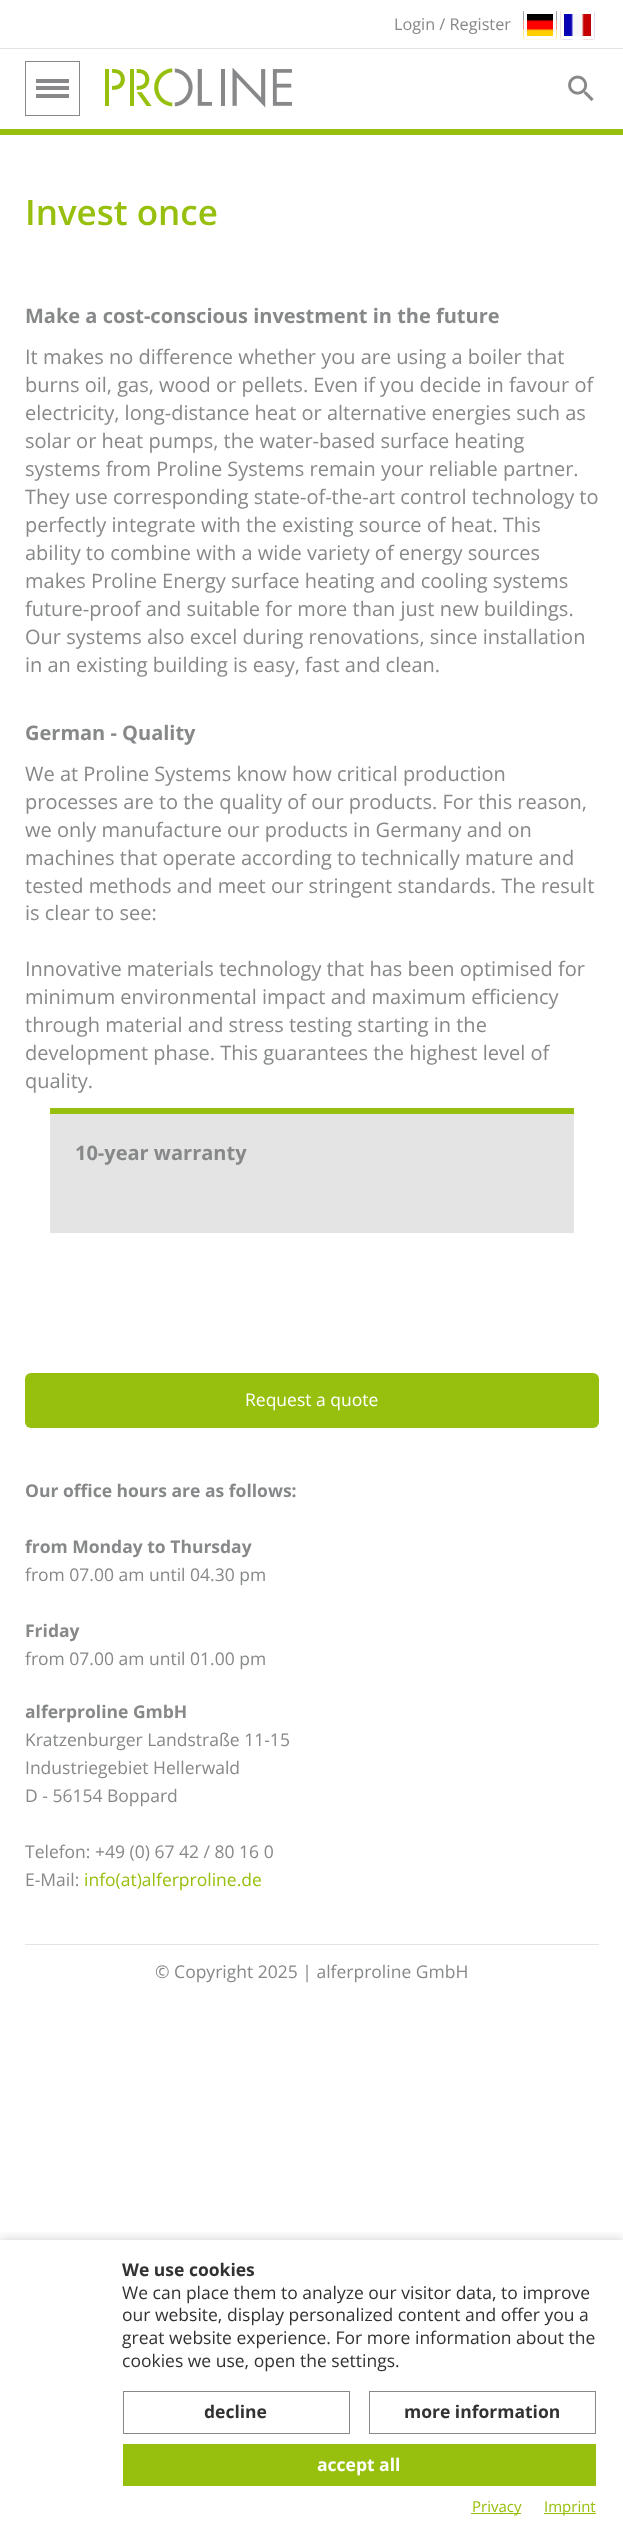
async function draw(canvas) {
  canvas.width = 623
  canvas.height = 2534
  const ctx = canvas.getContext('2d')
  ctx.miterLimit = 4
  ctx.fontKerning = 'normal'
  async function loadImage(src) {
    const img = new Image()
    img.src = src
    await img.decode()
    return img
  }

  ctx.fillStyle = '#fff'
  ctx.fillRect(0, 0, 623, 2534)
  ctx.fillStyle = '#97bf0d'
  ctx.fillRect(0, 129, 623, 6)
  ctx.fillStyle = '#e4e4e4'
  ctx.fillRect(0, 48, 623, 1)
  ctx.font = '16.25px Open Sans'
  ctx.fillStyle = '#868889'
  ctx.fillText('Login / Register', 394, 30)
  ctx.drawImage(await loadImage('image0.png'), 523, 11, 34, 29)
  ctx.strokeStyle = '#fff'
  ctx.lineWidth = 3
  ctx.strokeRect(525.5, 12.5, 29, 25)
  ctx.drawImage(await loadImage('image1.png'), 560, 11, 35, 29)
  ctx.strokeRect(562.5, 12.5, 30, 25)
  ctx.strokeStyle = '#868889'
  ctx.lineWidth = 1
  ctx.strokeRect(25.5, 61.5, 54, 54)
  ctx.fillRect(36, 79, 33, 4)
  ctx.fillRect(36, 86, 33, 4)
  ctx.fillRect(36, 94, 33, 4)
  ctx.drawImage(await loadImage('image2.png'), 105, 68, 187, 40)
  ctx.drawImage(await loadImage('image3.png'), 568, 75, 26, 26)
  ctx.font = '600 35px Open Sans'
  ctx.fillStyle = '#97bf0d'
  ctx.fillText('Invest once', 25, 225)
  ctx.font = 'bold 20px Open Sans'
  ctx.fillStyle = '#868889'
  ctx.fillText('Make a cost-conscious investment in the future', 25, 323)
  ctx.font = '20px Open Sans'
  ctx.fillText('It makes no difference whether you are using a boiler that', 25, 364)
  ctx.fillText('burns oil, gas, wood or pellets. Even if you decide in favour of', 25, 392)
  ctx.fillText('electricity, long-distance heat or alternative energies such as', 25, 420)
  ctx.fillText('solar or heat pumps, the water-based surface heating', 25, 448)
  ctx.fillText('systems from Proline Systems remain your reliable partner.', 25, 476)
  ctx.fillText('They use corresponding state-of-the-art control technology to', 25, 504)
  ctx.fillText('perfectly integrate with the existing source of heat. This', 25, 532)
  ctx.fillText('ability to combine with a wide variety of energy sources', 25, 560)
  ctx.fillText('makes Proline Energy surface heating and cooling systems', 25, 588)
  ctx.fillText('future-proof and suitable for more than just new buildings.', 25, 616)
  ctx.fillText('Our systems also excel during renovations, since installation', 25, 644)
  ctx.fillText('in an existing building is easy, fast and clean.', 25, 672)
  ctx.font = 'bold 20px Open Sans'
  ctx.fillText('German - Quality', 25, 740)
  ctx.font = '20px Open Sans'
  ctx.fillText('We at Proline Systems know how critical production', 25, 781)
  ctx.fillText('processes are to the quality of our products. For this reason,', 25, 809)
  ctx.fillText('we only manufacture our products in Germany and on', 25, 837)
  ctx.fillText('machines that operate according to technically mature and', 25, 865)
  ctx.fillText('tested methods and meet our stringent standards. The result', 25, 893)
  ctx.fillText('is clear to see:', 25, 920)
  ctx.fillText('Innovative materials technology that has been optimised for', 25, 976)
  ctx.fillText('minimum environmental impact and maximum efficiency', 25, 1004)
  ctx.fillText('through material and stress testing starting in the', 25, 1032)
  ctx.fillText('development phase. This guarantees the highest level of', 25, 1060)
  ctx.fillText('quality.', 25, 1088)
  ctx.fillStyle = '#e4e4e4'
  ctx.fillRect(50, 1114, 524, 119)
  ctx.fillStyle = '#97bf0d'
  ctx.fillRect(50, 1108, 524, 6)
  ctx.font = 'bold 20px Open Sans'
  ctx.fillStyle = '#868889'
  ctx.fillText('10-year warranty', 75, 1160)
  ctx.fillStyle = '#97bf0d'
  ctx.beginPath()
  ctx.roundRect(25, 1373, 574, 55, 6)
  ctx.fill()
  ctx.font = '17.5px Open Sans'
  ctx.fillStyle = '#fff'
  ctx.fillText('Request a quote', 245, 1406)
  ctx.font = 'bold 17.5px Open Sans'
  ctx.fillStyle = '#868889'
  ctx.fillText('Our office hours are as follows:', 25, 1497)
  ctx.fillText('from Monday to Thursday', 25, 1553)
  ctx.font = '17.5px Open Sans'
  ctx.fillText('from 07.00 am until 04.30 pm', 25, 1581)
  ctx.font = 'bold 17.5px Open Sans'
  ctx.fillText('Friday', 25, 1637)
  ctx.font = '17.5px Open Sans'
  ctx.fillText('from 07.00 am until 01.00 pm', 25, 1665)
  ctx.font = 'bold 17.5px Open Sans'
  ctx.fillText('alferproline GmbH', 25, 1718)
  ctx.font = '17.5px Open Sans'
  ctx.fillText('Kratzenburger Landstraße 11-15', 25, 1746)
  ctx.fillText('Industriegebiet Hellerwald', 25, 1774)
  ctx.fillText('D - 56154 Boppard', 25, 1802)
  ctx.fillText('Telefon: +49 (0) 67 42 / 80 16 0', 25, 1858)
  ctx.fillText('E-Mail:', 25, 1886)
  ctx.fillStyle = '#97bf0d'
  ctx.fillText('info(at)alferproline.de', 84, 1886)
  ctx.fillStyle = '#e4e4e4'
  ctx.fillRect(25, 1944, 574, 1)
  ctx.fillStyle = '#868889'
  ctx.fillText('© Copyright 2025 | alferproline GmbH', 155, 1978)
  ctx.save()
  ctx.beginPath()
  ctx.rect(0, 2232, 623, 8)
  ctx.clip()
  ctx.fillStyle = '#00000033'
  ctx.filter = 'blur(6px)'
  ctx.beginPath()
  ctx.rect(0, 2240, 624, 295)
  ctx.fill()
  ctx.filter = 'none'
  ctx.restore()
  ctx.font = 'bold 17.5px Open Sans'
  ctx.fillStyle = '#333132'
  ctx.fillText('We use cookies', 122, 2276)
  ctx.font = '17.5px Open Sans'
  ctx.fillText('We can place them to analyze our visitor data, to improve', 122, 2299)
  ctx.fillText('our website, display personalized content and offer you a', 122, 2321)
  ctx.fillText('great website experience. For more information about the', 122, 2344)
  ctx.fillText('cookies we use, open the settings.', 122, 2367)
  ctx.strokeRect(123.5, 2391.5, 226, 42)
  ctx.font = 'bold 17.5px Open Sans'
  ctx.fillText('decline', 204, 2418)
  ctx.strokeRect(369.5, 2391.5, 226, 42)
  ctx.fillText('more information', 404, 2418)
  ctx.fillStyle = '#97bf0d'
  ctx.fillRect(123, 2444, 473, 42)
  ctx.fillStyle = '#fff'
  ctx.fillText('accept all', 317, 2471)
  ctx.fillStyle = '#97bf0d'
  ctx.fillRect(471, 2513, 50, 1)
  ctx.font = '15px Open Sans'
  ctx.fillText('Privacy', 472, 2512)
  ctx.fillRect(544, 2513, 52, 1)
  ctx.fillText('Imprint', 544, 2512)
}

draw(document.querySelector('canvas'))
